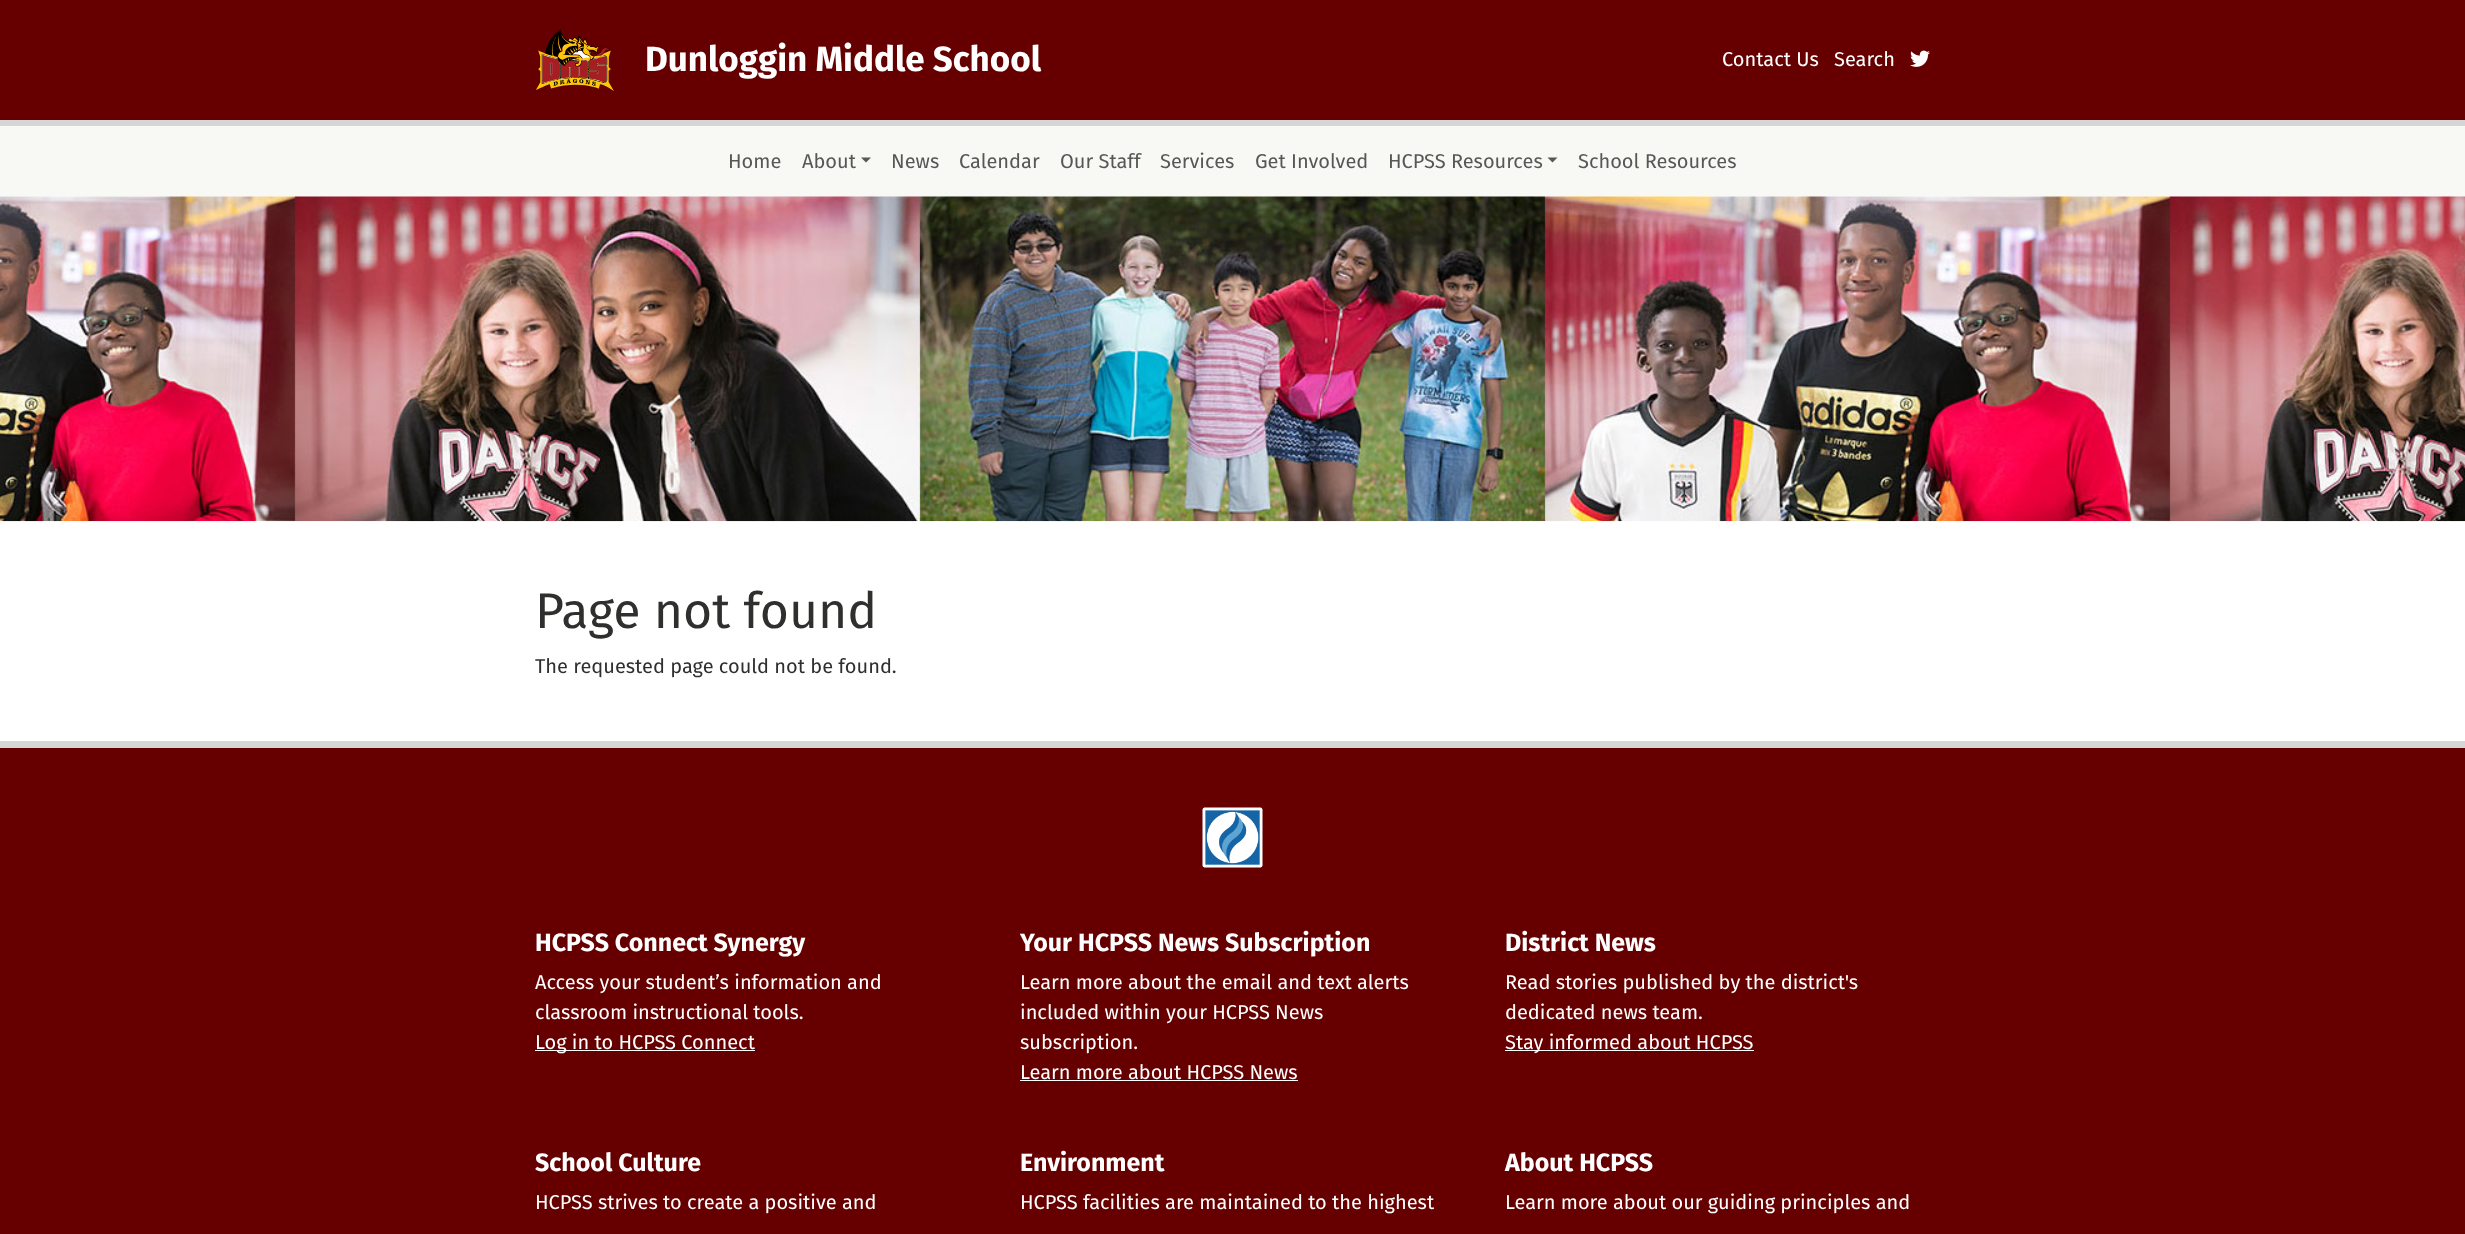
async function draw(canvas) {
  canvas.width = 2465
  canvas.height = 1234
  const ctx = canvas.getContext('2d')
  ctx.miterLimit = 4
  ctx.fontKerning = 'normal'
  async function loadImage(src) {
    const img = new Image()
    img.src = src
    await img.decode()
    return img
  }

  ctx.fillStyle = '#fff'
  ctx.fillRect(0, 0, 2465, 1234)
  ctx.fillStyle = '#600'
  ctx.fillRect(0, 0, 2465, 120)
  ctx.fillStyle = '#d6d6d6'
  ctx.fillRect(0, 120, 2465, 6)
  ctx.drawImage(await loadImage('image0.png'), 535, 29, 79, 62)
  ctx.font = 'bold 35px Fira Sans'
  ctx.fillStyle = '#fff'
  ctx.fillText('Dunloggin Middle School', 645, 71)
  ctx.font = '20px Fira Sans'
  ctx.fillText('Contact Us', 1722, 66)
  ctx.fillText('Search', 1834, 66)
  ctx.drawImage(await loadImage('image1.png'), 1910, 50, 20, 17)
  ctx.fillStyle = '#f8f8f5'
  ctx.fillRect(0, 126, 2465, 70)
  ctx.fillStyle = '#575756'
  ctx.fillText('Home', 728, 168)
  ctx.fillText('About', 802, 168)
  ctx.beginPath()
  ctx.moveTo(861, 157.5)
  ctx.lineTo(871, 157.5)
  ctx.lineTo(866, 162.5)
  ctx.closePath()
  ctx.fill()
  ctx.fillText('News', 891, 168)
  ctx.fillText('Calendar', 959, 168)
  ctx.fillText('Our Staff', 1060, 168)
  ctx.fillText('Services', 1160, 168)
  ctx.fillText('Get Involved', 1255, 168)
  ctx.fillText('HCPSS Resources', 1388, 168)
  ctx.beginPath()
  ctx.moveTo(1547.5, 157.5)
  ctx.lineTo(1557.5, 157.5)
  ctx.lineTo(1552.5, 162.5)
  ctx.closePath()
  ctx.fill()
  ctx.fillText('School Resources', 1578, 168)
  ctx.drawImage(await loadImage('image2.png'), 0, 196, 2465, 326)
  ctx.font = '50px Fira Sans'
  ctx.fillStyle = '#2f2f2d'
  ctx.fillText('Page not found', 535, 628)
  ctx.font = '20px Fira Sans'
  ctx.fillText('The requested page could not be found.', 535, 673)
  ctx.fillStyle = '#600'
  ctx.fillRect(0, 748, 2465, 486)
  ctx.fillStyle = '#d6d6d6'
  ctx.fillRect(0, 741, 2465, 7)
  ctx.drawImage(await loadImage('image3.png'), 1202, 807, 61, 61)
  ctx.font = 'bold 25px Fira Sans'
  ctx.fillStyle = '#fff'
  ctx.fillText('HCPSS Connect Synergy', 535, 951)
  ctx.font = '20px Fira Sans'
  ctx.fillText('Access your student’s information and', 535, 989)
  ctx.fillText('classroom instructional tools.', 535, 1019)
  ctx.fillRect(535, 1050, 220, 1)
  ctx.fillText('Log in to HCPSS Connect', 535, 1049)
  ctx.font = 'bold 25px Fira Sans'
  ctx.fillText('Your HCPSS News Subscription', 1020, 951)
  ctx.font = '20px Fira Sans'
  ctx.fillText('Learn more about the email and text alerts', 1020, 989)
  ctx.fillText('included within your HCPSS News', 1020, 1019)
  ctx.fillText('subscription.', 1020, 1049)
  ctx.fillText('Learn more about HCPSS News', 1020, 1079)
  ctx.fillRect(1020, 1080, 278, 1)
  ctx.font = 'bold 25px Fira Sans'
  ctx.fillText('District News', 1505, 951)
  ctx.font = '20px Fira Sans'
  ctx.fillText('Read stories published by the district\'s', 1505, 989)
  ctx.fillText('dedicated news team.', 1505, 1019)
  ctx.fillRect(1505, 1050, 249, 1)
  ctx.fillText('Stay informed about HCPSS', 1505, 1049)
  ctx.font = 'bold 25px Fira Sans'
  ctx.fillText('School Culture', 535, 1171)
  ctx.font = '20px Fira Sans'
  ctx.fillText('HCPSS strives to create a positive and', 535, 1209)
  ctx.font = 'bold 25px Fira Sans'
  ctx.fillText('Environment', 1020, 1171)
  ctx.font = '20px Fira Sans'
  ctx.fillText('HCPSS facilities are maintained to the highest', 1020, 1209)
  ctx.font = 'bold 25px Fira Sans'
  ctx.fillText('About HCPSS', 1505, 1171)
  ctx.font = '20px Fira Sans'
  ctx.fillText('Learn more about our guiding principles and', 1505, 1209)
}

draw(document.querySelector('canvas'))
